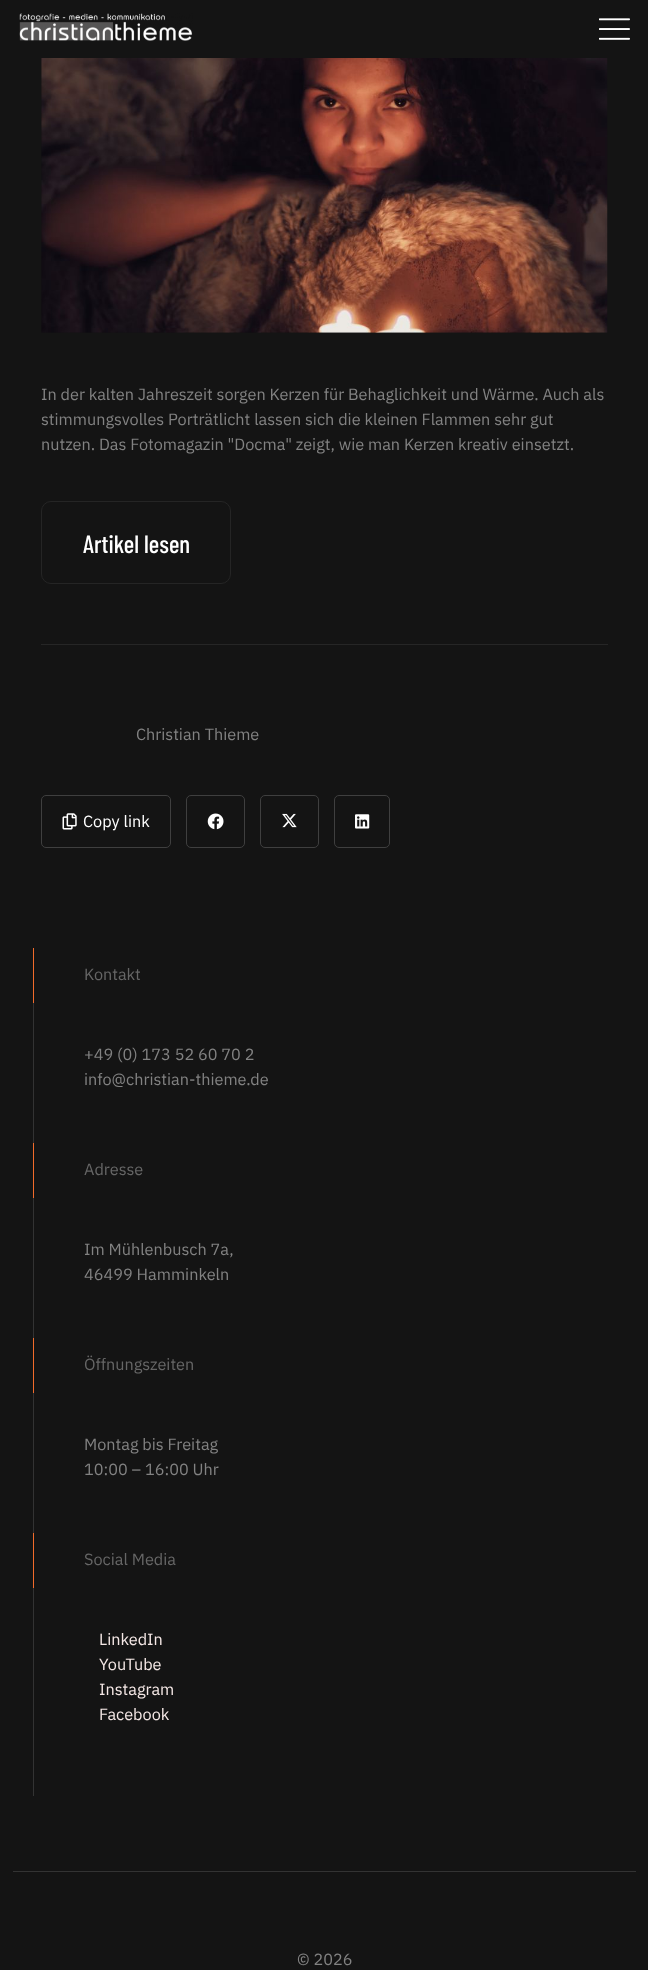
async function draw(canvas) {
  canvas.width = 648
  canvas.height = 1970
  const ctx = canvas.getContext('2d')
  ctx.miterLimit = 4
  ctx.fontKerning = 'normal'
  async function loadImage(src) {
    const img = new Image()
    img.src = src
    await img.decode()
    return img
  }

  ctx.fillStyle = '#141414'
  ctx.fillRect(0, 0, 648, 1970)
  ctx.drawImage(await loadImage('image0.png'), 19, 13, 174, 28)
  ctx.drawImage(await loadImage('image1.png'), 599, 18, 31, 22)
  ctx.drawImage(await loadImage('image2.png'), 41, 58, 567, 275)
  ctx.font = '16.25px IBM Plex Sans'
  ctx.fillStyle = '#828282'
  ctx.fillText('In der kalten Jahreszeit sorgen Kerzen für Behaglichkeit und Wärme. Auch als', 41, 400)
  ctx.fillText('stimmungsvolles Porträtlicht lassen sich die kleinen Flammen sehr gut', 41, 425)
  ctx.fillText('nutzen. Das Fotomagazin "Docma" zeigt, wie man Kerzen kreativ einsetzt.', 41, 450)
  ctx.beginPath()
  ctx.roundRect(41.5, 501.5, 189, 82, 9.5)
  ctx.strokeStyle = '#252525'
  ctx.stroke()
  ctx.font = '500 25px Barlow Condensed'
  ctx.fillStyle = '#fff'
  ctx.fillText('Artikel lesen', 83, 553)
  ctx.fillStyle = '#262626'
  ctx.fillRect(41, 644, 567, 1)
  ctx.font = '16.25px IBM Plex Sans'
  ctx.fillStyle = '#828282'
  ctx.fillText('Christian Thieme', 136, 740)
  ctx.beginPath()
  ctx.roundRect(41.5, 795.5, 129, 52, 4.5)
  ctx.strokeStyle = '#3f3f3f'
  ctx.stroke()
  ctx.drawImage(await loadImage('image3.png'), 62, 813, 15, 17)
  ctx.fillStyle = '#fff'
  ctx.fillText('Copy link', 83, 827)
  ctx.beginPath()
  ctx.roundRect(186.5, 795.5, 58, 52, 4.5)
  ctx.stroke()
  ctx.drawImage(await loadImage('image4.png'), 207, 813, 17, 17)
  ctx.beginPath()
  ctx.roundRect(260.5, 795.5, 58, 52, 4.5)
  ctx.stroke()
  ctx.drawImage(await loadImage('image5.png'), 282, 813, 15, 15)
  ctx.beginPath()
  ctx.roundRect(334.5, 795.5, 55, 52, 4.5)
  ctx.stroke()
  ctx.drawImage(await loadImage('image6.png'), 355, 814, 15, 15)
  ctx.fillStyle = '#333'
  ctx.fillRect(33, 1003, 1, 140)
  ctx.fillStyle = '#f26b2b'
  ctx.fillRect(33, 948, 1, 55)
  ctx.fillStyle = '#666'
  ctx.fillText('Kontakt', 84, 980)
  ctx.fillStyle = '#828282'
  ctx.fillText('+49 (0) 173 52 60 70 2', 84, 1060)
  ctx.fillText('info@christian-thieme.de', 84, 1085)
  ctx.fillStyle = '#333'
  ctx.fillRect(33, 1198, 1, 140)
  ctx.fillStyle = '#f26b2b'
  ctx.fillRect(33, 1143, 1, 55)
  ctx.fillStyle = '#666'
  ctx.fillText('Adresse', 84, 1175)
  ctx.fillStyle = '#828282'
  ctx.fillText('Im Mühlenbusch 7a,', 84, 1255)
  ctx.fillText('46499 Hamminkeln', 84, 1280)
  ctx.fillStyle = '#333'
  ctx.fillRect(33, 1393, 1, 140)
  ctx.fillStyle = '#f26b2b'
  ctx.fillRect(33, 1338, 1, 55)
  ctx.fillStyle = '#666'
  ctx.fillText('Öffnungszeiten', 84, 1370)
  ctx.fillStyle = '#828282'
  ctx.fillText('Montag bis Freitag', 84, 1450)
  ctx.fillText('10:00 – 16:00 Uhr', 84, 1475)
  ctx.fillStyle = '#333'
  ctx.fillRect(33, 1588, 1, 208)
  ctx.fillStyle = '#f26b2b'
  ctx.fillRect(33, 1533, 1, 55)
  ctx.fillStyle = '#666'
  ctx.fillText('Social Media', 84, 1565)
  ctx.fillStyle = '#f5e8e6'
  ctx.fillText('LinkedIn', 99, 1645)
  ctx.fillText('YouTube', 99, 1670)
  ctx.fillText('Instagram', 99, 1695)
  ctx.fillText('Facebook', 99, 1720)
  ctx.fillStyle = '#333'
  ctx.fillRect(13, 1871, 623, 1)
  ctx.fillStyle = '#828282'
  ctx.fillText('© 2026', 297, 1965)
}

draw(document.querySelector('canvas'))
